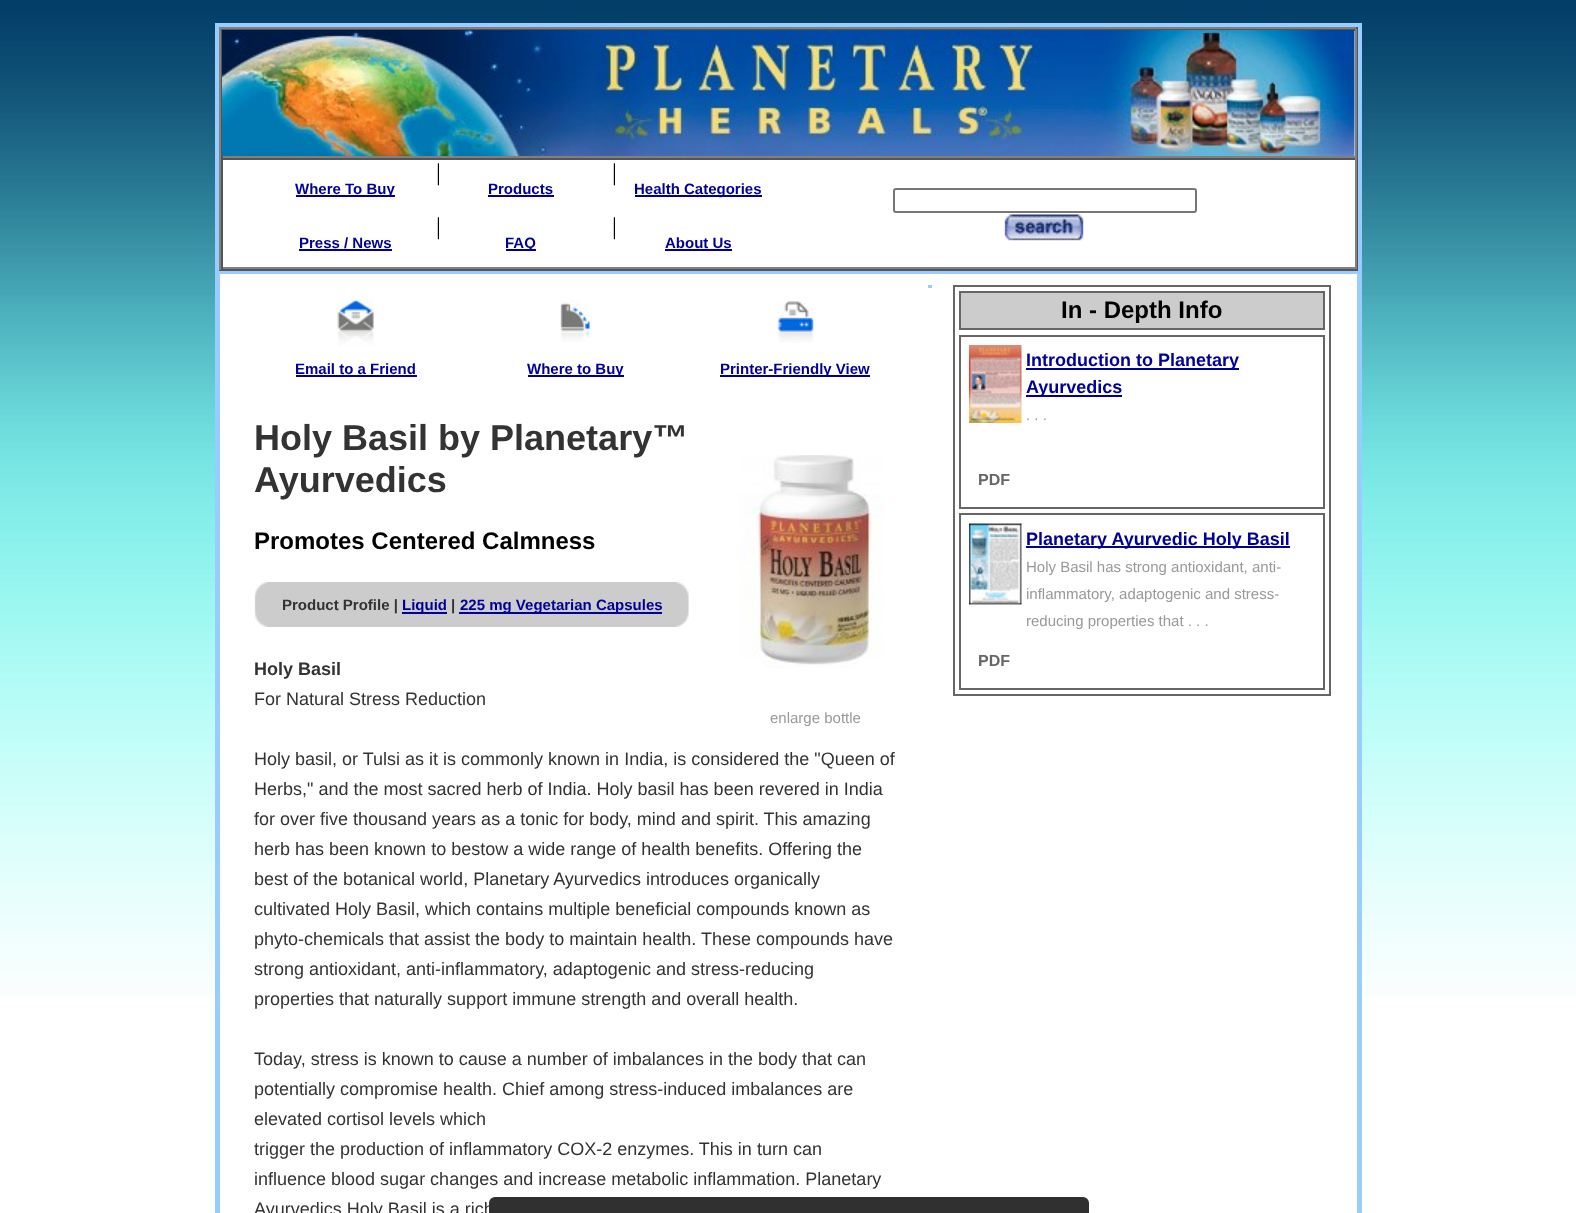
async function draw(canvas) {
  canvas.width = 1576
  canvas.height = 1213
  const ctx = canvas.getContext('2d')
  ctx.miterLimit = 4
  ctx.fontKerning = 'normal'
  async function loadImage(src) {
    const img = new Image()
    img.src = src
    await img.decode()
    return img
  }

  ctx.fillStyle = '#fff'
  ctx.fillRect(0, 0, 1576, 1213)
  ctx.drawImage(await loadImage('image0.png'), 0, 0, 1576, 997)
  ctx.fillRect(220, 31, 1137, 966)
  ctx.strokeStyle = '#9cf'
  ctx.lineWidth = 3
  ctx.strokeRect(216.5, 24.5, 1144, 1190)
  ctx.lineWidth = 2
  ctx.strokeRect(219, 27, 1139, 244)
  ctx.fillStyle = '#808080'
  ctx.fillRect(219, 27, 1139, 2)
  ctx.fillStyle = '#555'
  ctx.fillRect(1356, 27, 2, 243)
  ctx.fillRect(219, 269, 1139, 2)
  ctx.fillStyle = '#808080'
  ctx.fillRect(219, 27, 2, 243)
  ctx.fillStyle = '#555'
  ctx.fillRect(221, 29, 1135, 2)
  ctx.fillStyle = '#808080'
  ctx.fillRect(1355, 29, 2, 129)
  ctx.fillRect(221, 156, 1135, 2)
  ctx.fillStyle = '#555'
  ctx.fillRect(221, 29, 2, 129)
  ctx.drawImage(await loadImage('image1.png'), 222, 30, 1133, 126)
  ctx.fillRect(221, 158, 1135, 2)
  ctx.fillStyle = '#808080'
  ctx.fillRect(1355, 158, 2, 111)
  ctx.fillRect(221, 267, 1135, 2)
  ctx.fillStyle = '#555'
  ctx.fillRect(221, 158, 2, 111)
  ctx.font = '24px Liberation Serif'
  ctx.fillStyle = '#000'
  ctx.fillText('|', 436, 180)
  ctx.fillText('|', 612, 180)
  ctx.fillStyle = '#009'
  ctx.fillRect(296, 195, 99, 2)
  ctx.font = 'bold 15px Liberation Sans'
  ctx.fillText('Where To Buy', 295, 194)
  ctx.fillText('Products', 488, 194)
  ctx.fillRect(488, 195, 66, 2)
  ctx.fillRect(635, 195, 127, 2)
  ctx.fillText('Health Categories', 634, 194)
  ctx.font = '24px Liberation Serif'
  ctx.fillStyle = '#000'
  ctx.fillText('|', 436, 234)
  ctx.fillText('|', 612, 234)
  ctx.font = 'bold 15px Liberation Sans'
  ctx.fillStyle = '#009'
  ctx.fillText('Press / News', 299, 248)
  ctx.fillRect(299, 249, 93, 2)
  ctx.fillRect(506, 249, 30, 2)
  ctx.fillText('FAQ', 505, 248)
  ctx.fillText('About Us', 665, 248)
  ctx.fillRect(665, 249, 67, 2)
  ctx.beginPath()
  ctx.roundRect(894, 189, 302, 23, 2)
  ctx.strokeStyle = '#767676'
  ctx.stroke()
  ctx.drawImage(await loadImage('image2.png'), 1004, 214, 80, 27)
  ctx.strokeStyle = '#9cf'
  ctx.strokeRect(219, 273, 1139, 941)
  ctx.fillStyle = '#9cf'
  ctx.fillRect(928, 285, 4, 3)
  ctx.drawImage(await loadImage('image3.png'), 337, 300, 37, 46)
  ctx.drawImage(await loadImage('image4.png'), 560, 300, 33, 42)
  ctx.drawImage(await loadImage('image5.png'), 777, 301, 37, 42)
  ctx.fillStyle = '#009'
  ctx.fillText('Email to a Friend', 295, 374)
  ctx.fillRect(296, 375, 121, 2)
  ctx.fillRect(528, 375, 96, 2)
  ctx.fillText('Where to Buy', 527, 374)
  ctx.fillRect(720, 375, 150, 2)
  ctx.fillText('Printer-Friendly View', 720, 374)
  ctx.font = 'bold 36px Liberation Sans'
  ctx.fillStyle = '#333'
  ctx.fillText('Holy Basil by Planetary™', 254, 450)
  ctx.fillText('Ayurvedics', 254, 492)
  ctx.font = 'bold 24px Liberation Sans'
  ctx.fillStyle = '#000'
  ctx.fillText('Promotes Centered Calmness', 254, 549)
  ctx.drawImage(await loadImage('image6.png'), 254, 582, 13, 45)
  ctx.fillStyle = '#ccc'
  ctx.fillRect(267, 582, 410, 45)
  ctx.drawImage(await loadImage('image7.png'), 676, 582, 13, 45)
  ctx.font = 'bold 15px Liberation Sans'
  ctx.fillStyle = '#333'
  ctx.fillText('Product Profile |', 282, 610)
  ctx.fillStyle = '#009'
  ctx.fillRect(402, 612, 45, 2)
  ctx.fillText('Liquid', 402, 610)
  ctx.fillStyle = '#333'
  ctx.fillText('|', 451, 610)
  ctx.fillStyle = '#009'
  ctx.fillRect(459, 612, 203, 2)
  ctx.fillText('225 mg Vegetarian Capsules', 460, 610)
  ctx.font = 'bold 18px Liberation Sans'
  ctx.fillStyle = '#333'
  ctx.fillText('Holy Basil', 254, 675)
  ctx.font = '18px Liberation Sans'
  ctx.fillText('For Natural Stress Reduction', 254, 705)
  ctx.fillText('Holy basil, or Tulsi as it is commonly known in India, is considered the "Queen of', 254, 765)
  ctx.fillText('Herbs," and the most sacred herb of India. Holy basil has been revered in India', 254, 795)
  ctx.fillText('for over five thousand years as a tonic for body, mind and spirit. This amazing', 254, 825)
  ctx.fillText('herb has been known to bestow a wide range of health benefits. Offering the', 254, 855)
  ctx.fillText('best of the botanical world, Planetary Ayurvedics introduces organically', 254, 885)
  ctx.fillText('cultivated Holy Basil, which contains multiple beneficial compounds known as', 254, 915)
  ctx.fillText('phyto-chemicals that assist the body to maintain health. These compounds have', 254, 945)
  ctx.fillText('strong antioxidant, anti-inflammatory, adaptogenic and stress-reducing', 254, 975)
  ctx.fillText('properties that naturally support immune strength and overall health.', 254, 1005)
  ctx.fillText('Today, stress is known to cause a number of imbalances in the body that can', 254, 1065)
  ctx.fillText('potentially compromise health. Chief among stress-induced imbalances are', 254, 1095)
  ctx.fillText('elevated cortisol levels which', 254, 1125)
  ctx.fillText('trigger the production of inflammatory COX-2 enzymes. This in turn can', 254, 1155)
  ctx.fillText('influence blood sugar changes and increase metabolic inflammation. Planetary', 254, 1185)
  ctx.fillText('Ayurvedics Holy Basil is a rich', 254, 1215)
  ctx.drawImage(await loadImage('image8.png'), 739, 455, 145, 213)
  ctx.font = '15px Liberation Sans'
  ctx.fillStyle = '#999'
  ctx.fillText('enlarge bottle', 770, 723)
  ctx.strokeStyle = '#666'
  ctx.strokeRect(954, 286, 376, 409)
  ctx.fillStyle = '#ccc'
  ctx.beginPath()
  ctx.rect(960, 292, 364, 37)
  ctx.fill()
  ctx.stroke()
  ctx.font = 'bold 24px Liberation Sans'
  ctx.fillStyle = '#000'
  ctx.fillText('In - Depth Info', 1061, 318)
  ctx.strokeRect(960, 336, 364, 172)
  ctx.fillStyle = '#009'
  ctx.fillRect(1026, 368, 213, 2)
  ctx.font = 'bold 18px Liberation Sans'
  ctx.fillText('Introduction to Planetary', 1026, 366)
  ctx.fillRect(1026, 395, 96, 2)
  ctx.fillText('Ayurvedics', 1026, 393)
  ctx.font = '15px Liberation Sans'
  ctx.fillStyle = '#999'
  ctx.fillText('. . .', 1026, 420)
  ctx.drawImage(await loadImage('image9.png'), 969, 345, 53, 78)
  ctx.font = 'bold 16px Liberation Sans'
  ctx.fillStyle = '#666'
  ctx.fillText('PDF', 978, 485)
  ctx.strokeRect(960, 514, 364, 175)
  ctx.fillStyle = '#009'
  ctx.fillRect(1026, 546, 264, 2)
  ctx.font = 'bold 18px Liberation Sans'
  ctx.fillText('Planetary Ayurvedic Holy Basil', 1026, 545)
  ctx.font = '15px Liberation Sans'
  ctx.fillStyle = '#999'
  ctx.fillText('Holy Basil has strong antioxidant, anti-', 1026, 572)
  ctx.fillText('inflammatory, adaptogenic and stress-', 1026, 599)
  ctx.fillText('reducing properties that . . .', 1026, 626)
  ctx.drawImage(await loadImage('image10.png'), 969, 523, 53, 82)
  ctx.font = 'bold 16px Liberation Sans'
  ctx.fillStyle = '#666'
  ctx.fillText('PDF', 978, 666)
  ctx.drawImage(await loadImage('image11.png'), 489, 1197, 600, 16)
}

draw(document.querySelector('canvas'))
